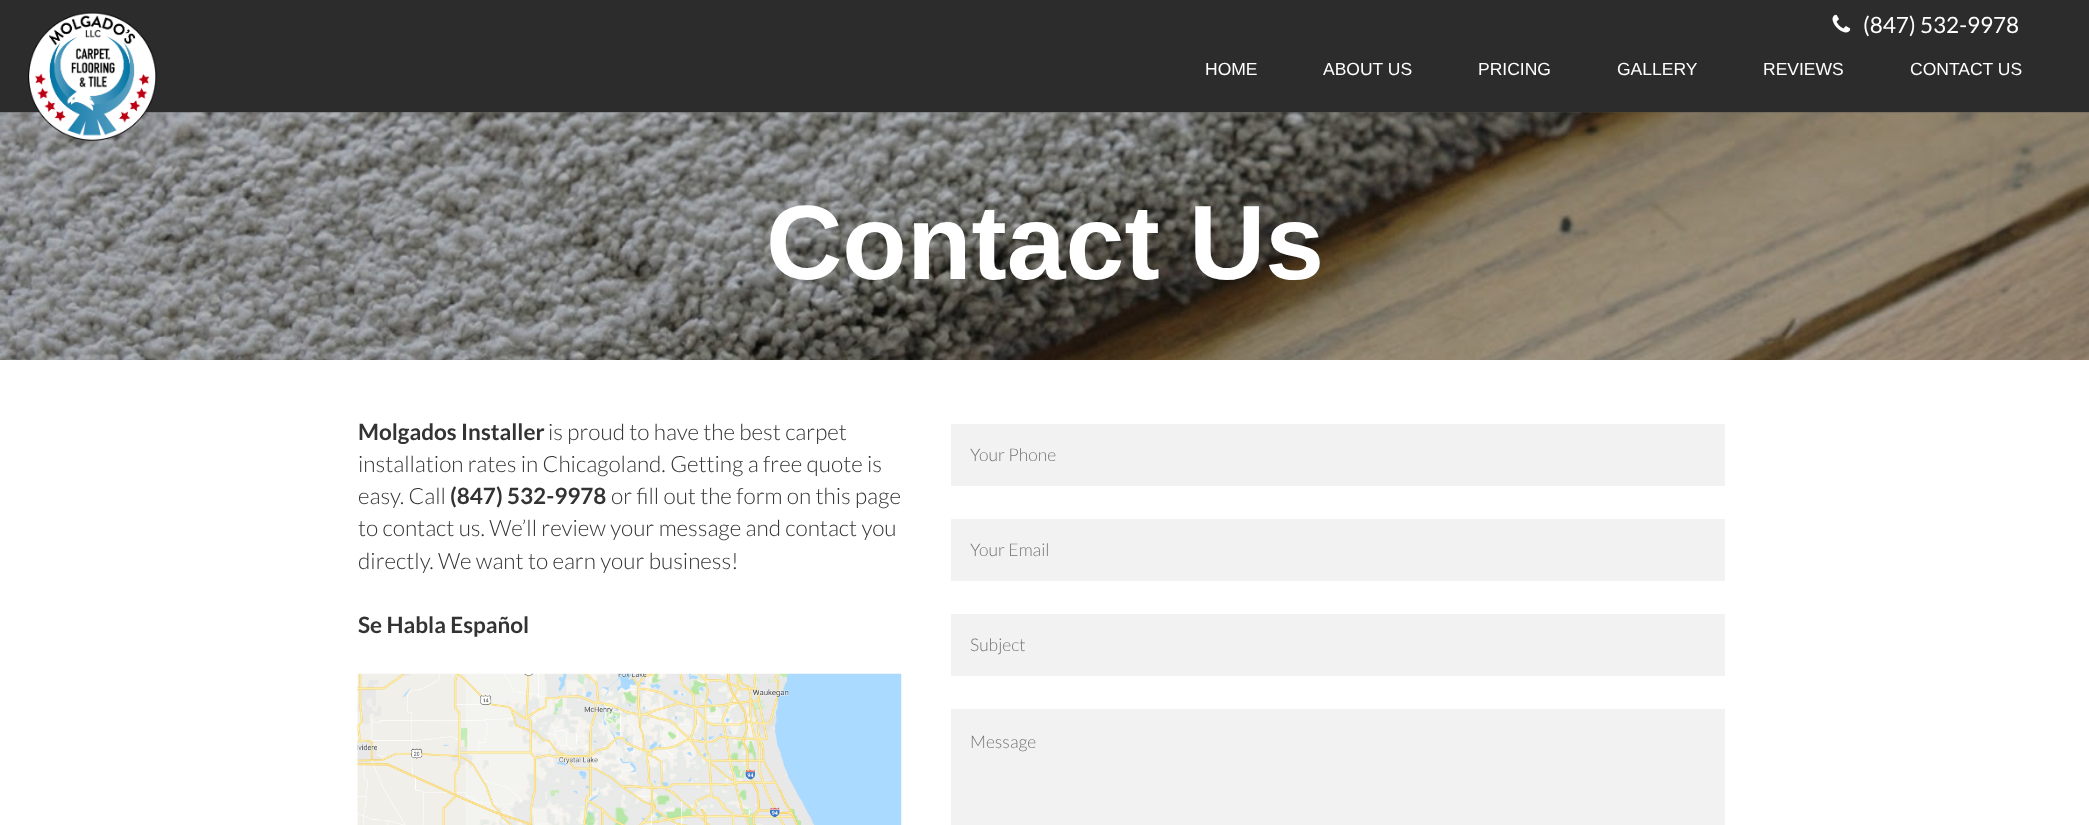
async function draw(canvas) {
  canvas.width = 2089
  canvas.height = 825
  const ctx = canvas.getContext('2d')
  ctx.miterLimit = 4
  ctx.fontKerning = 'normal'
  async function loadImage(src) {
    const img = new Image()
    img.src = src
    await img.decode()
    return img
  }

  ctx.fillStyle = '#fff'
  ctx.fillRect(0, 0, 2089, 825)
  ctx.fillStyle = '#2c2c2c'
  ctx.fillRect(0, 0, 2089, 113)
  ctx.drawImage(await loadImage('image2.png'), 0, 112, 2089, 248)
  ctx.drawImage(await loadImage('image0.png'), 28, 12, 129, 129)
  ctx.drawImage(await loadImage('image1.png'), 1832, 14, 19, 19)
  ctx.font = '22.5px Lato'
  ctx.fillStyle = '#fff'
  ctx.fillText('(847) 532-9978', 1863, 33)
  ctx.font = '17.5px Liberation Sans'
  ctx.fillText('HOME', 1205, 75)
  ctx.fillText('ABOUT US', 1323, 75)
  ctx.fillText('PRICING', 1478, 75)
  ctx.fillText('GALLERY', 1617, 75)
  ctx.fillText('REVIEWS', 1763, 75)
  ctx.fillText('CONTACT US', 1910, 75)
  ctx.font = 'bold 105.75px Liberation Sans'
  ctx.fillText('Contact Us', 766, 279)
  ctx.font = 'bold 22.5px Lato'
  ctx.fillStyle = '#333'
  ctx.fillText('Molgados Installer', 358, 440)
  ctx.font = '300 22.5px Lato'
  ctx.fillText('is proud to have the best carpet', 548, 440)
  ctx.fillText('installation rates in Chicagoland. Getting a free quote is', 358, 472)
  ctx.fillText('easy. Call', 358, 504)
  ctx.font = 'bold 22.5px Lato'
  ctx.fillText('(847) 532-9978', 450, 504)
  ctx.font = '300 22.5px Lato'
  ctx.fillText('or fill out the form on this page', 611, 504)
  ctx.fillText('to contact us. We’ll review your message and contact you', 358, 536)
  ctx.fillText('directly. We want to earn your business!', 358, 569)
  ctx.font = 'bold 22.5px Lato'
  ctx.fillText('Se Habla Español', 358, 633)
  ctx.drawImage(await loadImage('image3.png'), 357, 673, 545, 152)
  ctx.fillStyle = '#f2f2f3'
  ctx.fillRect(951, 424, 774, 62)
  ctx.font = '300 17.5px Lato'
  ctx.fillStyle = '#757575'
  ctx.fillText('Your Phone', 970, 461)
  ctx.fillStyle = '#f2f2f3'
  ctx.fillRect(951, 519, 774, 62)
  ctx.fillStyle = '#757575'
  ctx.fillText('Your Email', 970, 556)
  ctx.fillStyle = '#f2f2f3'
  ctx.fillRect(951, 614, 774, 62)
  ctx.fillStyle = '#757575'
  ctx.fillText('Subject', 970, 651)
  ctx.fillStyle = '#f2f2f3'
  ctx.fillRect(951, 709, 774, 116)
  ctx.fillStyle = '#757575'
  ctx.fillText('Message', 970, 748)
}

draw(document.querySelector('canvas'))
